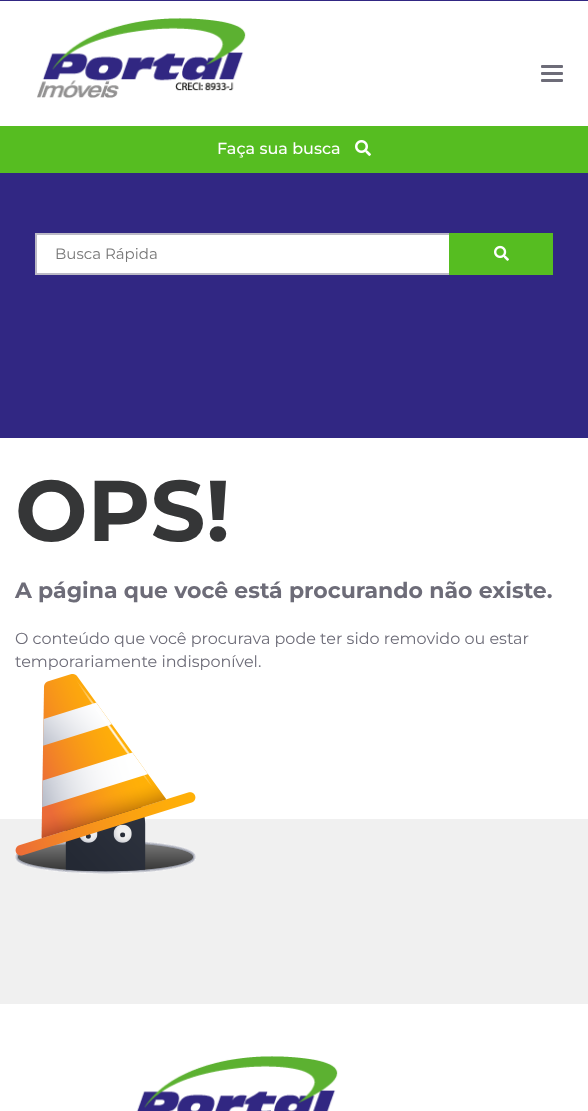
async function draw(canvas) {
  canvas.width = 588
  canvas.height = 1111
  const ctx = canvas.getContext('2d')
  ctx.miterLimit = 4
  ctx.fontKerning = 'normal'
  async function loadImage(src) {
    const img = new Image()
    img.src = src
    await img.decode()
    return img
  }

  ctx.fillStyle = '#fff'
  ctx.fillRect(0, 0, 588, 1111)
  ctx.fillStyle = '#312783'
  ctx.fillRect(0, 0, 588, 1)
  ctx.drawImage(await loadImage('image0.png'), 37, 18, 209, 80)
  ctx.fillStyle = '#6d6c78'
  ctx.beginPath()
  ctx.roundRect(541, 65, 22, 3, 1)
  ctx.fill()
  ctx.beginPath()
  ctx.roundRect(541, 72, 22, 3, 1)
  ctx.fill()
  ctx.beginPath()
  ctx.roundRect(541, 79, 22, 3, 1)
  ctx.fill()
  ctx.fillStyle = '#56bd21'
  ctx.fillRect(0, 126, 588, 47)
  ctx.font = '500 16px Montserrat'
  ctx.fillStyle = '#fff'
  ctx.fillText('Faça sua busca', 217, 154)
  ctx.drawImage(await loadImage('image1.png'), 355, 140, 16, 16)
  ctx.fillStyle = '#312783'
  ctx.fillRect(0, 173, 588, 265)
  ctx.fillStyle = '#fff'
  ctx.fillRect(37, 235, 412, 38)
  ctx.strokeStyle = '#bcbac6'
  ctx.lineWidth = 2
  ctx.strokeRect(36, 234, 516, 40)
  ctx.font = '15px Montserrat'
  ctx.fillStyle = '#777'
  ctx.fillText('Busca Rápida', 55, 259)
  ctx.fillStyle = '#56bd21'
  ctx.fillRect(449, 233, 104, 42)
  ctx.drawImage(await loadImage('image2.png'), 494, 245, 15, 16)
  ctx.font = 'bold 86px Montserrat'
  ctx.fillStyle = '#353637'
  ctx.fillText('OPS!', 15, 541)
  ctx.font = 'bold 22px Montserrat'
  ctx.fillStyle = '#6d6c78'
  ctx.fillText('A página que você está procurando não existe.', 15, 598)
  ctx.font = '16px Montserrat'
  ctx.fillText('O conteúdo que você procurava pode ter sido removido ou estar', 15, 644)
  ctx.fillText('temporariamente indisponível.', 15, 667)
  ctx.fillStyle = '#f0f0f0'
  ctx.fillRect(0, 819, 588, 185)
  ctx.drawImage(await loadImage('image3.png'), 15, 674, 181, 200)
  ctx.drawImage(await loadImage('image4.png'), 136, 1056, 202, 55)
}

draw(document.querySelector('canvas'))
